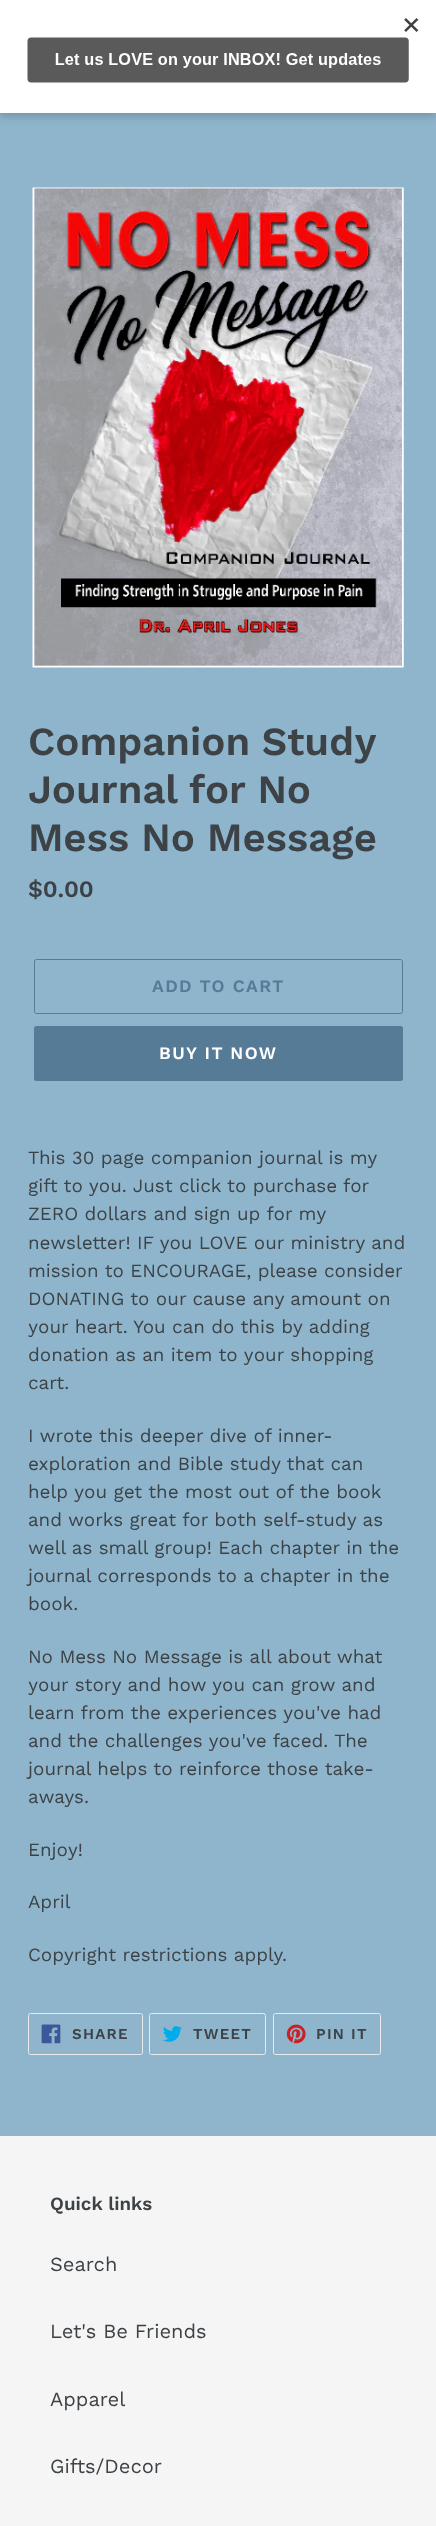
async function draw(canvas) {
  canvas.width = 436
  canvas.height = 2526
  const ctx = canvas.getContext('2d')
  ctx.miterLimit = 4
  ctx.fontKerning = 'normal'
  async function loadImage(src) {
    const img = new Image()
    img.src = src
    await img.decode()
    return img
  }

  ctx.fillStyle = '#8eb5cc'
  ctx.fillRect(0, 0, 436, 2526)
  ctx.fillStyle = '#00000033'
  ctx.filter = 'blur(4px)'
  ctx.beginPath()
  ctx.rect(0, 4, 436, 112)
  ctx.fill()
  ctx.filter = 'none'
  ctx.fillStyle = '#fff'
  ctx.fillRect(0, 0, 436, 113)
  ctx.drawImage(await loadImage('image0.png'), 27, 18, 392, 65)
  ctx.drawImage(await loadImage('image1.png'), 32, 187, 372, 481)
  ctx.wordSpacing = '-1px'
  ctx.font = '600 40px Work Sans'
  ctx.fillStyle = '#3d4246'
  ctx.fillText('Companion Study', 28, 755)
  ctx.wordSpacing = '0px'
  ctx.fillText('Journal for No', 28, 803)
  ctx.fillText('Mess No Message', 28, 851)
  ctx.font = '600 23.5px Work Sans'
  ctx.fillText('$0.00', 28, 897)
  ctx.beginPath()
  ctx.roundRect(34.5, 959.5, 368, 54, 2)
  ctx.strokeStyle = '#557b97'
  ctx.stroke()
  ctx.letterSpacing = '1.4px'
  ctx.font = '600 17.5px Work Sans'
  ctx.fillStyle = '#557b97'
  ctx.fillText('ADD TO CART', 152, 992)
  ctx.beginPath()
  ctx.roundRect(34, 1026, 369, 55, 2.5)
  ctx.fill()
  ctx.fillStyle = '#fff'
  ctx.fillText('BUY IT NOW', 159, 1059)
  ctx.letterSpacing = '0px'
  ctx.font = '18.75px Work Sans'
  ctx.fillStyle = '#3d4246'
  ctx.fillText('This 30 page companion journal is my', 28, 1164)
  ctx.fillText('gift to you. Just click to purchase for', 28, 1192)
  ctx.fillText('ZERO dollars and sign up for my', 28, 1220)
  ctx.fillText('newsletter! IF you LOVE our ministry and', 28, 1249)
  ctx.fillText('mission to ENCOURAGE, please consider', 28, 1277)
  ctx.fillText('DONATING to our cause any amount on', 28, 1305)
  ctx.fillText('your heart. You can do this by adding', 28, 1333)
  ctx.fillText('donation as an item to your shopping', 28, 1361)
  ctx.fillText('cart.', 28, 1389)
  ctx.fillText('I wrote this deeper dive of inner-', 28, 1442)
  ctx.fillText('exploration and Bible study that can', 28, 1470)
  ctx.fillText('help you get the most out of the book', 28, 1498)
  ctx.fillText('and works great for both self-study as', 28, 1526)
  ctx.fillText('well as small group! Each chapter in the', 28, 1554)
  ctx.fillText('journal corresponds to a chapter in the', 28, 1582)
  ctx.fillText('book.', 28, 1610)
  ctx.fillText('No Mess No Message is all about what', 28, 1663)
  ctx.fillText('your story and how you can grow and', 28, 1691)
  ctx.fillText('learn from the experiences you\'ve had', 28, 1719)
  ctx.fillText('and the challenges you\'ve faced. The', 28, 1747)
  ctx.fillText('journal helps to reinforce those take-', 28, 1775)
  ctx.fillText('aways.', 28, 1803)
  ctx.fillText('Enjoy!', 28, 1856)
  ctx.fillText('April', 28, 1908)
  ctx.fillText('Copyright restrictions apply.', 28, 1961)
  ctx.beginPath()
  ctx.roundRect(28.5, 2013.5, 114, 41, 2)
  ctx.strokeStyle = '#e8e9eb'
  ctx.stroke()
  ctx.drawImage(await loadImage('image2.png'), 41, 2024, 20, 20)
  ctx.letterSpacing = '1.25px'
  ctx.font = '600 15px Work Sans'
  ctx.fillText('SHARE', 72, 2039)
  ctx.beginPath()
  ctx.roundRect(149.5, 2013.5, 116, 41, 2)
  ctx.stroke()
  ctx.drawImage(await loadImage('image3.png'), 163, 2026, 19, 16)
  ctx.fillText('TWEET', 193, 2039)
  ctx.beginPath()
  ctx.roundRect(273.5, 2013.5, 107, 41, 2)
  ctx.stroke()
  ctx.drawImage(await loadImage('image4.png'), 286, 2024, 20, 20)
  ctx.fillText('PIN IT', 316, 2039)
  ctx.fillStyle = '#f5f5f5'
  ctx.fillRect(0, 2136, 436, 390)
  ctx.letterSpacing = '0px'
  ctx.font = '600 18.75px Work Sans'
  ctx.fillStyle = '#3d4246'
  ctx.fillText('Quick links', 50, 2210)
  ctx.font = '20px Work Sans'
  ctx.fillText('Search', 50, 2271)
  ctx.fillText('Let\'s Be Friends', 50, 2338)
  ctx.fillText('Apparel', 50, 2406)
  ctx.fillText('Gifts/Decor', 50, 2473)
}

draw(document.querySelector('canvas'))
